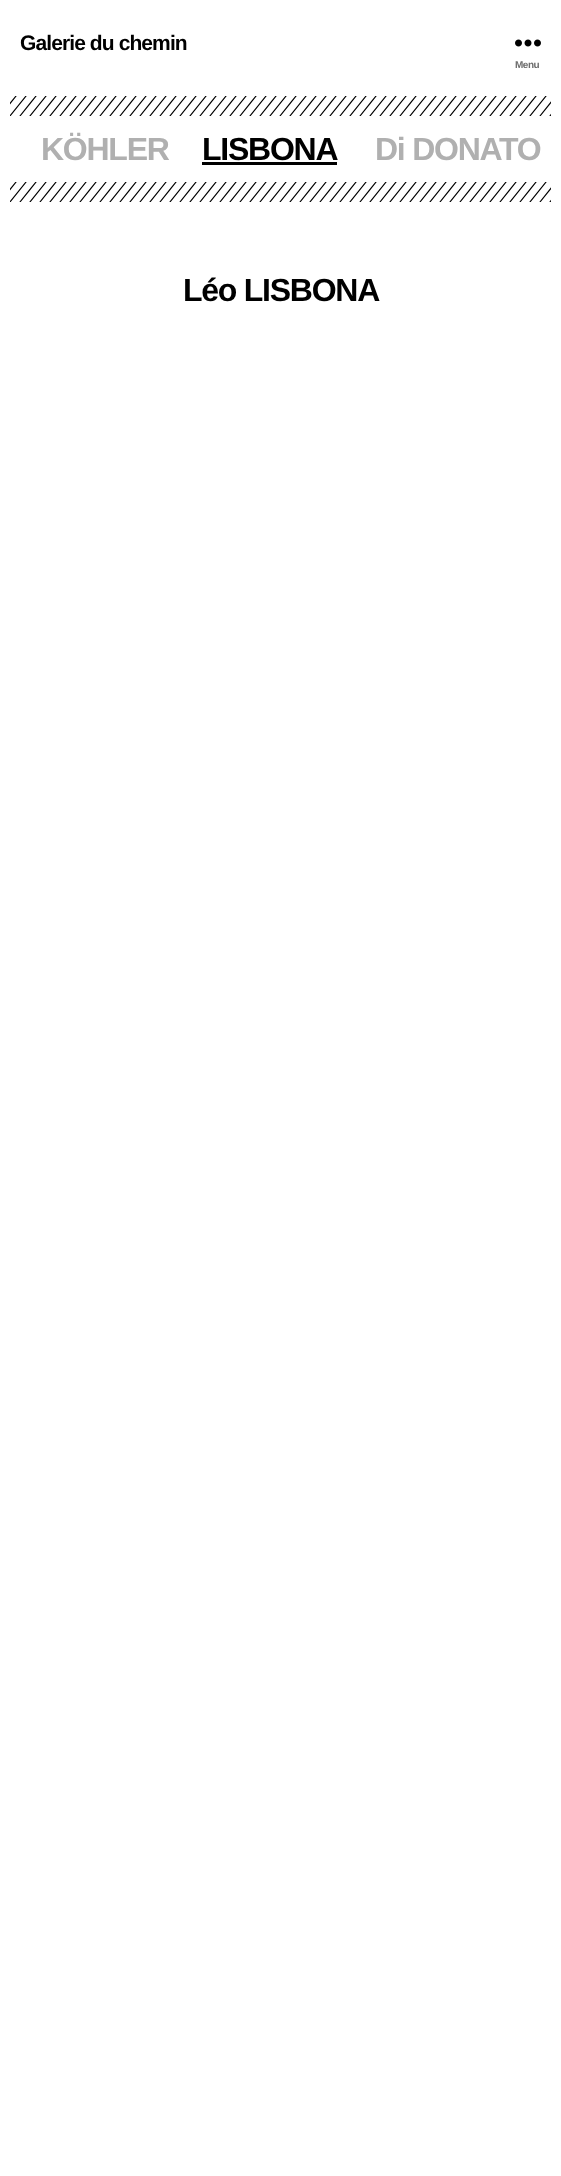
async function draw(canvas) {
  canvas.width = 561
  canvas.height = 2176
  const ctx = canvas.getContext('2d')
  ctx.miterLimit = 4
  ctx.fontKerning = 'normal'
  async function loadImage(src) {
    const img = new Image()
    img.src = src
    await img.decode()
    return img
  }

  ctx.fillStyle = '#fff'
  ctx.fillRect(0, 0, 561, 2176)
  ctx.letterSpacing = '-0.9px'
  ctx.font = 'bold 21px Liberation Sans'
  ctx.fillStyle = '#000'
  ctx.fillText('Galerie du chemin', 20, 50)
  ctx.drawImage(await loadImage('image0.png'), 515, 39, 26, 8)
  ctx.letterSpacing = '-0.5px'
  ctx.font = 'bold 10px Liberation Sans'
  ctx.fillStyle = '#6d6d6d'
  ctx.fillText('Menu', 515, 68)
  ctx.drawImage(await loadImage('image1.png'), 10, 96, 541, 20)
  ctx.letterSpacing = '-1.25px'
  ctx.font = 'bold 32px Liberation Sans'
  ctx.fillStyle = '#b0b0b0'
  ctx.fillText('KÖHLER', 41, 160)
  ctx.fillStyle = '#000'
  ctx.fillText('LISBONA', 202, 160)
  ctx.fillRect(202, 162, 135, 3)
  ctx.fillStyle = '#b0b0b0'
  ctx.fillText('Di DONATO', 375, 160)
  ctx.drawImage(await loadImage('image1.png'), 10, 182, 541, 20)
  ctx.fillStyle = '#000'
  ctx.fillText('Léo LISBONA', 183, 301)
}

draw(document.querySelector('canvas'))
